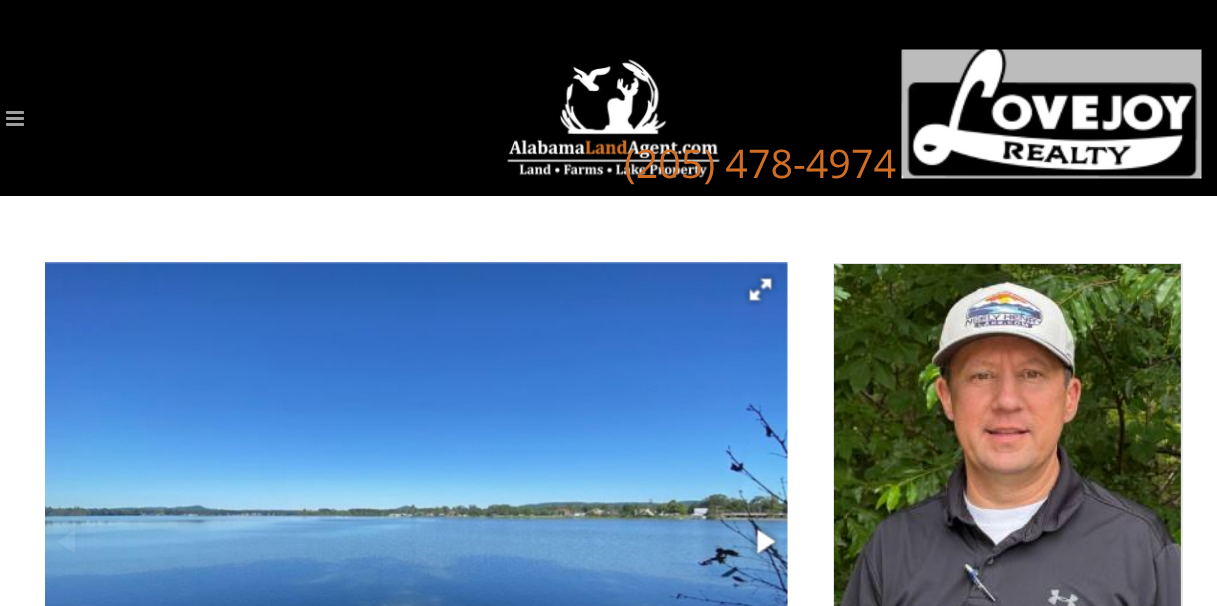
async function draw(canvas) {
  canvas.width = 1217
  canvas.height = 606
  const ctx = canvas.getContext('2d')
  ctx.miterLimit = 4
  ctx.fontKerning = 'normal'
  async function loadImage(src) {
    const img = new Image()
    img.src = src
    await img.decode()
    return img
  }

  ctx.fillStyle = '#fff'
  ctx.fillRect(0, 0, 1217, 606)
  ctx.fillStyle = '#000'
  ctx.fillRect(0, 0, 1217, 196)
  ctx.drawImage(await loadImage('image0.png'), 6, 111, 18, 15)
  ctx.drawImage(await loadImage('image1.png'), 507, 59, 214, 119)
  ctx.font = '39.5px Open Sans'
  ctx.fillStyle = '#d16e25'
  ctx.fillText('(205) 478-4974', 624, 178)
  ctx.drawImage(await loadImage('image2.png'), 901, 49, 301, 130)
  ctx.drawImage(await loadImage('image3.png'), 45, 262, 743, 344)
  ctx.drawImage(await loadImage('image4.png'), 744, 273, 33, 33)
  ctx.drawImage(await loadImage('image5.png'), 58, 530, 19, 23)
  ctx.drawImage(await loadImage('image6.png'), 751, 525, 28, 33)
  ctx.fillStyle = '#e5e5e5'
  ctx.fillRect(833, 263, 349, 2)
  ctx.fillRect(1181, 263, 2, 343)
  ctx.fillRect(833, 263, 2, 343)
  ctx.drawImage(await loadImage('image7.png'), 834, 264, 347, 342)
  ctx.drawImage(await loadImage('image8.png'), 1180, 264, 1, 342)
  ctx.drawImage(await loadImage('image9.png'), 1180, 264, 1, 342)
}

draw(document.querySelector('canvas'))
